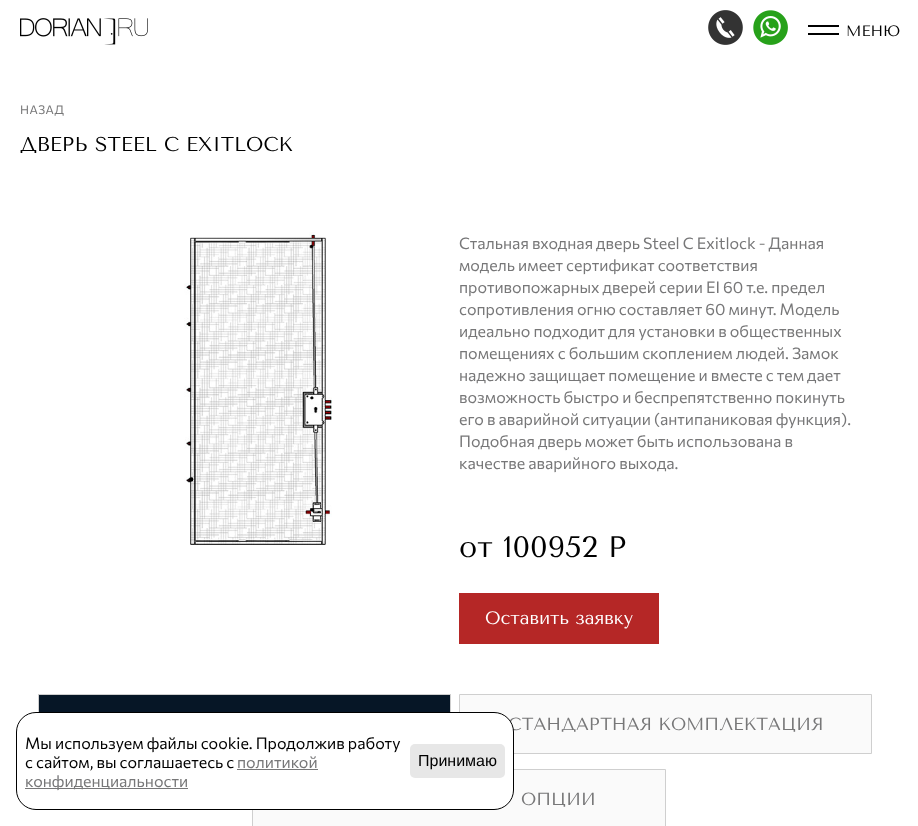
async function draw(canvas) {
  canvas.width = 918
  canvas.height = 826
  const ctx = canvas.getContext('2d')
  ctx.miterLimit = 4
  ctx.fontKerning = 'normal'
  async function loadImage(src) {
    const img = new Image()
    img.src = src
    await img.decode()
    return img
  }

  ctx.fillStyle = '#fff'
  ctx.fillRect(0, 0, 918, 826)
  ctx.drawImage(await loadImage('image0.png'), 20, 18, 128, 27)
  ctx.drawImage(await loadImage('image1.png'), 708, 10, 35, 35)
  ctx.drawImage(await loadImage('image2.png'), 753, 10, 35, 35)
  ctx.fillStyle = '#000'
  ctx.fillRect(808, 25, 31, 2)
  ctx.font = '15px Tenor Sans'
  ctx.fillText('МЕНЮ', 846, 36)
  ctx.fillRect(808, 33, 31, 2)
  ctx.letterSpacing = '0.5px'
  ctx.font = '12px Commissioner'
  ctx.fillStyle = '#777778'
  ctx.fillText('НАЗАД', 20, 114)
  ctx.letterSpacing = '0px'
  ctx.font = '20px Tenor Sans'
  ctx.fillStyle = '#000'
  ctx.fillText('ДВЕРЬ STEEL C EXITLOCK', 20, 151)
  ctx.drawImage(await loadImage('image3.png'), 184, 232, 148, 313)
  ctx.font = '16px Commissioner'
  ctx.fillStyle = '#777778'
  ctx.fillText('Стальная входная дверь Steel C Exitlock - Данная', 459, 249)
  ctx.fillText('модель имеет сертификат соответствия', 459, 271)
  ctx.fillText('противопожарных дверей серии EI 60 т.е. предел', 459, 293)
  ctx.fillText('сопротивления огню составляет 60 минут. Модель', 459, 315)
  ctx.fillText('идеально подходит для установки в общественных', 459, 337)
  ctx.fillText('помещениях с большим скоплением людей. Замок', 459, 359)
  ctx.fillText('надежно защищает помещение и вместе с тем дает', 459, 381)
  ctx.fillText('возможность быстро и беспрепятственно покинуть', 459, 403)
  ctx.fillText('его в аварийной ситуации (антипаниковая функция).', 459, 425)
  ctx.fillText('Подобная дверь может быть использована в', 459, 447)
  ctx.fillText('качестве аварийного выхода.', 459, 469)
  ctx.font = '29.5px Tenor Sans'
  ctx.fillStyle = '#000'
  ctx.fillText('от 100952 Р', 459, 557)
  ctx.fillStyle = '#b52726'
  ctx.fillRect(459, 593, 200, 51)
  ctx.font = '18px Tenor Sans'
  ctx.fillStyle = '#fff'
  ctx.fillText('Оставить заявку', 485, 624)
  ctx.fillStyle = '#061626'
  ctx.fillRect(39, 695, 411, 17)
  ctx.strokeStyle = '#cfcfcf'
  ctx.strokeRect(38.5, 694.5, 412, 59)
  ctx.fillStyle = '#fafafa'
  ctx.beginPath()
  ctx.rect(459.5, 694.5, 412, 59)
  ctx.fill()
  ctx.stroke()
  ctx.font = '17.6px Tenor Sans'
  ctx.fillStyle = '#777778'
  ctx.fillText('СТАНДАРТНАЯ КОМПЛЕКТАЦИЯ', 508, 730)
  ctx.fillStyle = '#fafafa'
  ctx.beginPath()
  ctx.rect(252.5, 769.5, 413, 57)
  ctx.fill()
  ctx.stroke()
  ctx.fillStyle = '#fff'
  ctx.beginPath()
  ctx.roundRect(16.5, 712.5, 497, 97, 19.5)
  ctx.fill()
  ctx.strokeStyle = '#000'
  ctx.stroke()
  ctx.font = '16px Commissioner'
  ctx.fillStyle = '#000'
  ctx.fillText('Мы используем файлы cookie. Продолжив работу', 25, 749)
  ctx.fillText('с сайтом, вы соглашаетесь с', 25, 768)
  ctx.fillStyle = '#777778'
  ctx.fillText('политикой', 237, 768)
  ctx.fillRect(237, 769, 81, 1)
  ctx.fillRect(25, 788, 163, 1)
  ctx.fillText('конфиденциальности', 25, 787)
  ctx.fillStyle = '#e7e7e7'
  ctx.beginPath()
  ctx.roundRect(410, 744, 95, 34, 5)
  ctx.fill()
  ctx.font = '16px Liberation Sans'
  ctx.fillStyle = '#000'
  ctx.fillText('Принимаю', 418, 766)
  ctx.font = '17.6px Tenor Sans'
  ctx.fillStyle = '#777778'
  ctx.fillText('ОПЦИИ', 521, 805)
}

draw(document.querySelector('canvas'))
